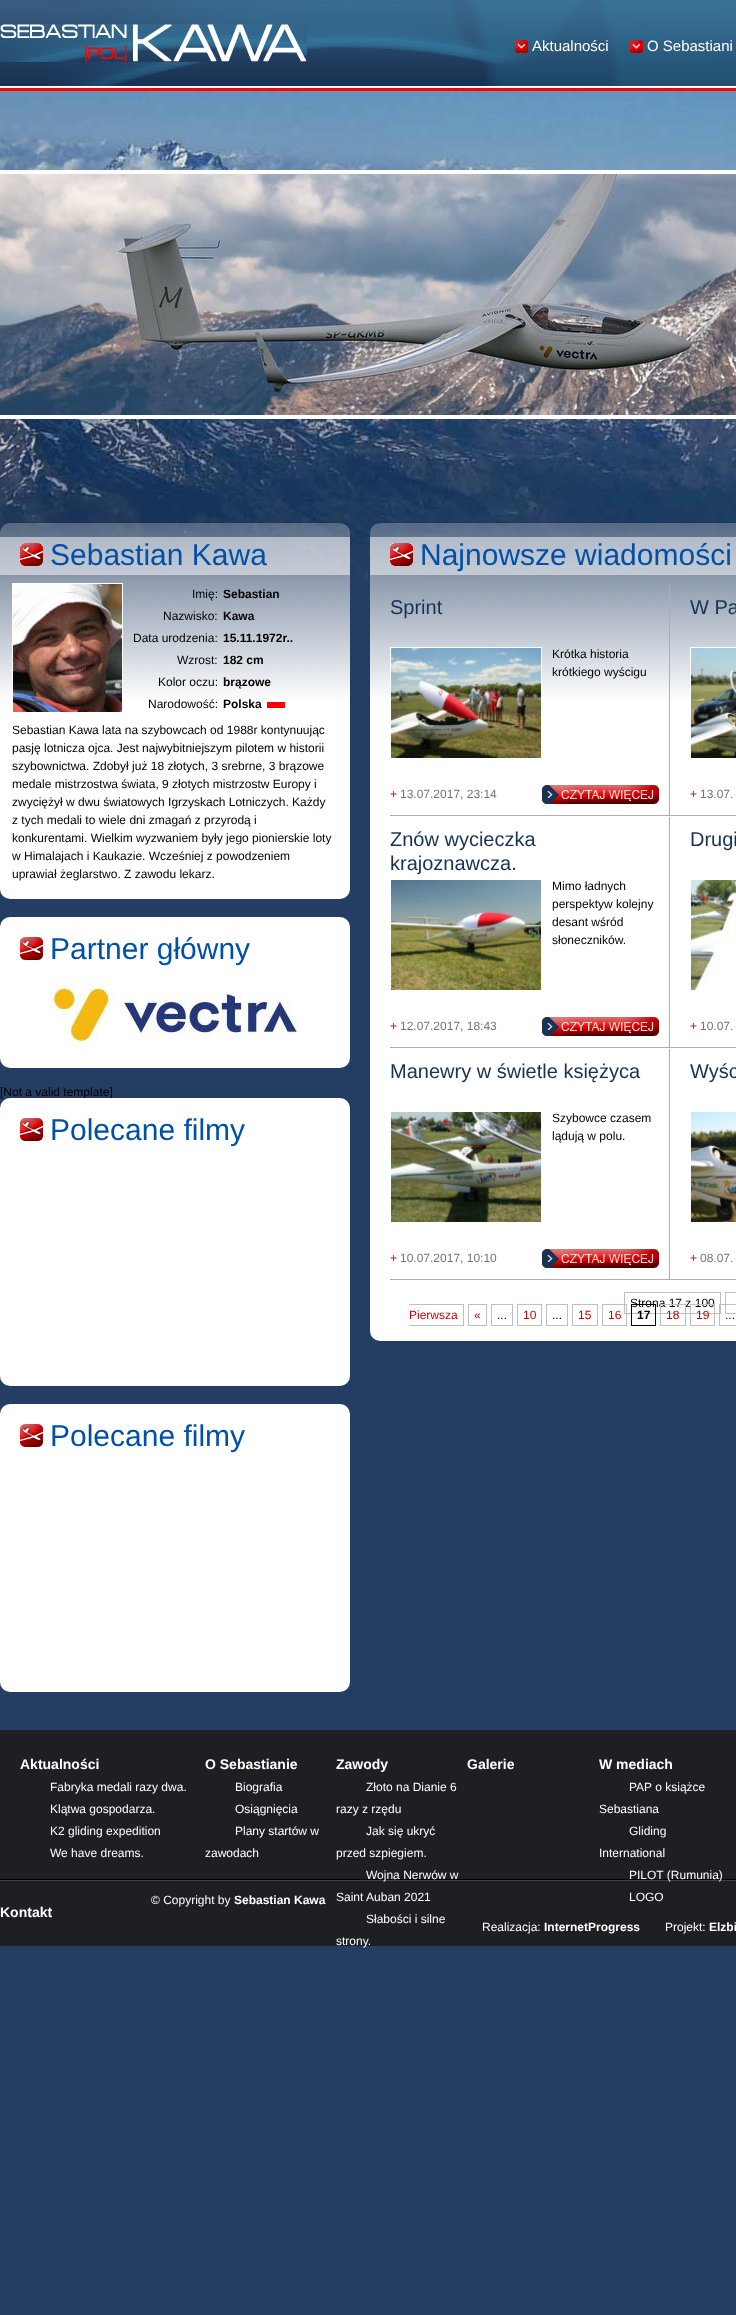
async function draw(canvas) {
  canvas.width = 736
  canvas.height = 2315
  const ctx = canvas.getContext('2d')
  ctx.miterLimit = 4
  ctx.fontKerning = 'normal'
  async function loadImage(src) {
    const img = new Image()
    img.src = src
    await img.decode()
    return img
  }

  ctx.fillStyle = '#243e63'
  ctx.fillRect(0, 0, 736, 2315)
  ctx.drawImage(await loadImage('image0.png'), 0, 91, 736, 488)
  ctx.drawImage(await loadImage('image1.png'), 0, 0, 736, 91)
  ctx.drawImage(await loadImage('image2.png'), 48, 0, 688, 86)
  ctx.drawImage(await loadImage('image3.png'), 0, 24, 307, 38)
  ctx.drawImage(await loadImage('image4.png'), 515, 40, 14, 13)
  ctx.font = '15px Liberation Sans'
  ctx.fillStyle = '#fff'
  ctx.fillText('Aktualności', 532, 51)
  ctx.drawImage(await loadImage('image5.png'), 630, 40, 13, 13)
  ctx.fillText('O Sebastiani', 647, 51)
  ctx.strokeStyle = '#fff'
  ctx.lineWidth = 4
  ctx.strokeRect(-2, 172, 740, 245)
  ctx.drawImage(await loadImage('image6.png'), 0, 174, 736, 241)
  ctx.drawImage(await loadImage('image7.png'), 0, 523, 350, 298)
  ctx.fillStyle = '#ffffff80'
  ctx.fillRect(0, 537, 350, 38)
  ctx.drawImage(await loadImage('image8.png'), 20, 543, 23, 23)
  ctx.font = '30px Liberation Sans'
  ctx.fillStyle = '#0050a7'
  ctx.fillText('Sebastian Kawa', 50, 565)
  ctx.lineWidth = 1
  ctx.strokeRect(12.5, 583.5, 110, 129)
  ctx.drawImage(await loadImage('image9.png'), 13, 584, 109, 128)
  ctx.font = '12px Liberation Sans'
  ctx.fillStyle = '#000'
  ctx.fillText('Imię:', 192, 598)
  ctx.fillText('Nazwisko:', 163, 620)
  ctx.fillText('Data urodzenia:', 133, 642)
  ctx.fillText('Wzrost:', 177, 664)
  ctx.fillText('Kolor oczu:', 158, 686)
  ctx.fillText('Narodowość:', 148, 708)
  ctx.font = 'bold 12px Liberation Sans'
  ctx.fillText('Sebastian', 223, 598)
  ctx.fillText('Kawa', 223, 620)
  ctx.fillText('15.11.1972r..', 223, 642)
  ctx.fillText('182 cm', 223, 664)
  ctx.fillText('brązowe', 223, 686)
  ctx.fillText('Polska', 223, 708)
  ctx.drawImage(await loadImage('image10.png'), 267, 696, 18, 12)
  ctx.font = '12px Liberation Sans'
  ctx.fillText('Sebastian Kawa lata na szybowcach od 1988r kontynuując', 12, 734)
  ctx.fillText('pasję lotnicza ojca. Jest najwybitniejszym pilotem w historii', 12, 752)
  ctx.fillText('szybownictwa. Zdobył już 18 złotych, 3 srebrne, 3 brązowe', 12, 770)
  ctx.fillText('medale mistrzostwa świata, 9 złotych mistrzostw Europy i', 12, 788)
  ctx.fillText('zwyciężył w dwu światowych Igrzyskach Lotniczych. Każdy', 12, 806)
  ctx.drawImage(await loadImage('image11.png'), 0, 821, 350, 78)
  ctx.fillText('z tych medali to wiele dni zmagań z przyrodą i', 12, 824)
  ctx.fillText('konkurentami. Wielkim wyzwaniem były jego pionierskie loty', 12, 842)
  ctx.fillText('w Himalajach i Kaukazie. Wcześniej z powodzeniem', 12, 860)
  ctx.fillText('uprawiał żeglarstwo. Z zawodu lekarz.', 12, 878)
  ctx.fillStyle = '#fff'
  ctx.beginPath()
  ctx.roundRect(0, 917, 350, 151, 10)
  ctx.fill()
  ctx.drawImage(await loadImage('image12.png'), 20, 937, 23, 23)
  ctx.font = '30px Liberation Sans'
  ctx.fillStyle = '#0050a7'
  ctx.fillText('Partner główny', 50, 959)
  ctx.drawImage(await loadImage('image13.png'), 50, 977, 250, 65)
  ctx.font = '12px Liberation Sans'
  ctx.fillStyle = '#000'
  ctx.fillText('[Not a valid template]', 0, 1096)
  ctx.fillStyle = '#fff'
  ctx.beginPath()
  ctx.roundRect(0, 1098, 350, 288, 10)
  ctx.fill()
  ctx.drawImage(await loadImage('image12.png'), 20, 1118, 23, 23)
  ctx.font = '30px Liberation Sans'
  ctx.fillStyle = '#0050a7'
  ctx.fillText('Polecane filmy', 50, 1140)
  ctx.fillStyle = '#fff'
  ctx.beginPath()
  ctx.roundRect(0, 1404, 350, 288, 10)
  ctx.fill()
  ctx.drawImage(await loadImage('image12.png'), 20, 1424, 23, 23)
  ctx.fillStyle = '#0050a7'
  ctx.fillText('Polecane filmy', 50, 1446)
  ctx.drawImage(await loadImage('image14.png'), 370, 523, 366, 298)
  ctx.fillStyle = '#ffffff80'
  ctx.fillRect(370, 537, 366, 38)
  ctx.drawImage(await loadImage('image15.png'), 390, 543, 23, 23)
  ctx.fillStyle = '#0050a7'
  ctx.fillText('Najnowsze wiadomości', 420, 565)
  ctx.fillStyle = '#aeaeaf'
  ctx.fillRect(669, 585, 1, 231)
  ctx.fillRect(390, 815, 346, 1)
  ctx.font = '20px Liberation Sans'
  ctx.fillStyle = '#183253'
  ctx.fillText('Sprint', 390, 614)
  ctx.strokeRect(390.5, 647.5, 151, 111)
  ctx.drawImage(await loadImage('image16.png'), 391, 648, 150, 110)
  ctx.font = '12px Liberation Sans'
  ctx.fillStyle = '#000'
  ctx.fillText('Krótka historia', 552, 658)
  ctx.fillText('krótkiego wyścigu', 552, 676)
  ctx.fillStyle = '#f00'
  ctx.fillText('+', 390, 798)
  ctx.fillStyle = '#737373'
  ctx.fillText('13.07.2017, 23:14', 400, 798)
  ctx.drawImage(await loadImage('image17.png'), 542, 785, 117, 19)
  ctx.font = '20px Liberation Sans'
  ctx.fillStyle = '#183253'
  ctx.fillText('W Pa', 690, 614)
  ctx.strokeRect(690.5, 647.5, 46, 111)
  ctx.drawImage(await loadImage('image18.png'), 691, 648, 45, 110)
  ctx.font = '12px Liberation Sans'
  ctx.fillStyle = '#f00'
  ctx.fillText('+', 690, 798)
  ctx.fillStyle = '#737373'
  ctx.fillText('13.07.', 700, 798)
  ctx.drawImage(await loadImage('image19.png'), 370, 821, 366, 520)
  ctx.fillStyle = '#aeaeaf'
  ctx.fillRect(669, 817, 1, 231)
  ctx.fillRect(390, 1047, 346, 1)
  ctx.font = '20px Liberation Sans'
  ctx.fillStyle = '#183253'
  ctx.fillText('Znów wycieczka', 390, 846)
  ctx.fillText('krajoznawcza.', 390, 870)
  ctx.drawImage(await loadImage('image20.png'), 391, 880, 150, 110)
  ctx.font = '12px Liberation Sans'
  ctx.fillStyle = '#000'
  ctx.fillText('Mimo ładnych', 552, 890)
  ctx.fillText('perspektyw kolejny', 552, 908)
  ctx.fillText('desant wśród', 552, 926)
  ctx.fillText('słoneczników.', 552, 944)
  ctx.fillStyle = '#f00'
  ctx.fillText('+', 390, 1030)
  ctx.fillStyle = '#737373'
  ctx.fillText('12.07.2017, 18:43', 400, 1030)
  ctx.drawImage(await loadImage('image17.png'), 542, 1017, 117, 19)
  ctx.font = '20px Liberation Sans'
  ctx.fillStyle = '#183253'
  ctx.fillText('Drugi', 690, 846)
  ctx.drawImage(await loadImage('image21.png'), 691, 880, 45, 110)
  ctx.font = '12px Liberation Sans'
  ctx.fillStyle = '#f00'
  ctx.fillText('+', 690, 1030)
  ctx.fillStyle = '#737373'
  ctx.fillText('10.07.', 700, 1030)
  ctx.fillStyle = '#aeaeaf'
  ctx.fillRect(669, 1049, 1, 231)
  ctx.fillRect(390, 1279, 346, 1)
  ctx.font = '20px Liberation Sans'
  ctx.fillStyle = '#183253'
  ctx.fillText('Manewry w świetle księżyca', 390, 1078)
  ctx.drawImage(await loadImage('image22.png'), 391, 1112, 150, 110)
  ctx.font = '12px Liberation Sans'
  ctx.fillStyle = '#000'
  ctx.fillText('Szybowce czasem', 552, 1122)
  ctx.fillText('lądują w polu.', 552, 1140)
  ctx.fillStyle = '#f00'
  ctx.fillText('+', 390, 1262)
  ctx.fillStyle = '#737373'
  ctx.fillText('10.07.2017, 10:10', 400, 1262)
  ctx.drawImage(await loadImage('image17.png'), 542, 1249, 117, 19)
  ctx.font = '20px Liberation Sans'
  ctx.fillStyle = '#183253'
  ctx.fillText('Wyśc', 690, 1078)
  ctx.drawImage(await loadImage('image23.png'), 691, 1112, 45, 110)
  ctx.font = '12px Liberation Sans'
  ctx.fillStyle = '#f00'
  ctx.fillText('+', 690, 1262)
  ctx.fillStyle = '#737373'
  ctx.fillText('08.07.', 700, 1262)
  ctx.strokeStyle = '#bfbfbf'
  ctx.strokeRect(624.5, 1292.5, 96, 21)
  ctx.fillStyle = '#000'
  ctx.fillText('Strona 17 z 100', 630, 1307)
  ctx.fillStyle = '#c10404'
  ctx.fillText('Pierwsza', 409, 1319)
  ctx.fillStyle = '#bfbfbf'
  ctx.fillRect(725, 1292, 11, 1)
  ctx.fillRect(725, 1313, 11, 1)
  ctx.fillRect(725, 1292, 1, 22)
  ctx.fillRect(409, 1304, 55, 1)
  ctx.fillRect(463, 1304, 1, 22)
  ctx.fillRect(409, 1325, 55, 1)
  ctx.strokeRect(468.5, 1304.5, 18, 21)
  ctx.fillStyle = '#c10404'
  ctx.fillText('«', 474, 1319)
  ctx.strokeRect(491.5, 1304.5, 21, 21)
  ctx.fillStyle = '#000'
  ctx.fillText('...', 497, 1319)
  ctx.strokeRect(517.5, 1304.5, 24, 21)
  ctx.fillStyle = '#c10404'
  ctx.fillText('10', 523, 1319)
  ctx.strokeRect(546.5, 1304.5, 21, 21)
  ctx.fillStyle = '#000'
  ctx.fillText('...', 552, 1319)
  ctx.strokeRect(572.5, 1304.5, 25, 21)
  ctx.fillStyle = '#c10404'
  ctx.fillText('15', 578, 1319)
  ctx.strokeRect(602.5, 1304.5, 24, 21)
  ctx.fillText('16', 608, 1319)
  ctx.strokeStyle = '#000'
  ctx.strokeRect(631.5, 1304.5, 24, 21)
  ctx.font = 'bold 12px Liberation Sans'
  ctx.fillStyle = '#000'
  ctx.fillText('17', 637, 1319)
  ctx.strokeStyle = '#bfbfbf'
  ctx.strokeRect(660.5, 1304.5, 25, 21)
  ctx.font = '12px Liberation Sans'
  ctx.fillStyle = '#c10404'
  ctx.fillText('18', 666, 1319)
  ctx.strokeRect(690.5, 1304.5, 24, 21)
  ctx.fillText('19', 696, 1319)
  ctx.strokeRect(719.5, 1304.5, 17, 21)
  ctx.fillStyle = '#000'
  ctx.fillText('...', 725, 1319)
  ctx.fillStyle = '#1e1f22'
  ctx.fillRect(0, 1730, 736, 216)
  ctx.font = 'bold 14px Liberation Sans'
  ctx.fillStyle = '#fff'
  ctx.fillText('Aktualności', 20, 1769)
  ctx.font = '12px Liberation Sans'
  ctx.fillText('Fabryka medali razy dwa.', 50, 1791)
  ctx.fillText('Klątwa gospodarza.', 50, 1813)
  ctx.fillText('K2 gliding expedition', 50, 1835)
  ctx.fillText('We have dreams.', 50, 1857)
  ctx.font = 'bold 14px Liberation Sans'
  ctx.fillText('O Sebastianie', 205, 1769)
  ctx.font = '12px Liberation Sans'
  ctx.fillText('Biografia', 235, 1791)
  ctx.fillText('Osiągnięcia', 235, 1813)
  ctx.fillText('Plany startów w', 235, 1835)
  ctx.fillText('zawodach', 205, 1857)
  ctx.font = 'bold 14px Liberation Sans'
  ctx.fillText('Zawody', 336, 1769)
  ctx.font = '12px Liberation Sans'
  ctx.fillText('Złoto na Dianie 6', 366, 1791)
  ctx.fillText('razy z rzędu', 336, 1813)
  ctx.fillText('Jak się ukryć', 366, 1835)
  ctx.fillText('przed szpiegiem.', 336, 1857)
  ctx.drawImage(await loadImage('image24.png'), 0, 1879, 736, 2)
  ctx.fillText('Wojna Nerwów w', 366, 1879)
  ctx.fillText('Saint Auban 2021', 336, 1901)
  ctx.fillText('Słabości i silne', 366, 1923)
  ctx.fillText('strony.', 336, 1945)
  ctx.font = 'bold 14px Liberation Sans'
  ctx.fillText('Galerie', 467, 1769)
  ctx.fillText('W mediach', 599, 1769)
  ctx.font = '12px Liberation Sans'
  ctx.fillText('PAP o książce', 629, 1791)
  ctx.fillText('Sebastiana', 599, 1813)
  ctx.fillText('Gliding', 629, 1835)
  ctx.fillText('International', 599, 1857)
  ctx.fillText('PILOT (Rumunia)', 629, 1879)
  ctx.fillText('LOGO', 629, 1901)
  ctx.font = 'bold 14px Liberation Sans'
  ctx.fillText('Kontakt', 0, 1917)
  ctx.font = '12px Liberation Sans'
  ctx.fillText('© Copyright by', 151, 1904)
  ctx.font = 'bold 12px Liberation Sans'
  ctx.fillText('Sebastian Kawa', 234, 1904)
  ctx.font = '12px Liberation Sans'
  ctx.fillText('Realizacja:', 482, 1931)
  ctx.font = 'bold 12px Liberation Sans'
  ctx.fillText('InternetProgress', 544, 1931)
  ctx.font = '12px Liberation Sans'
  ctx.fillText('Projekt:', 665, 1931)
  ctx.font = 'bold 12px Liberation Sans'
  ctx.fillText('Elzbi', 709, 1931)
}

draw(document.querySelector('canvas'))
